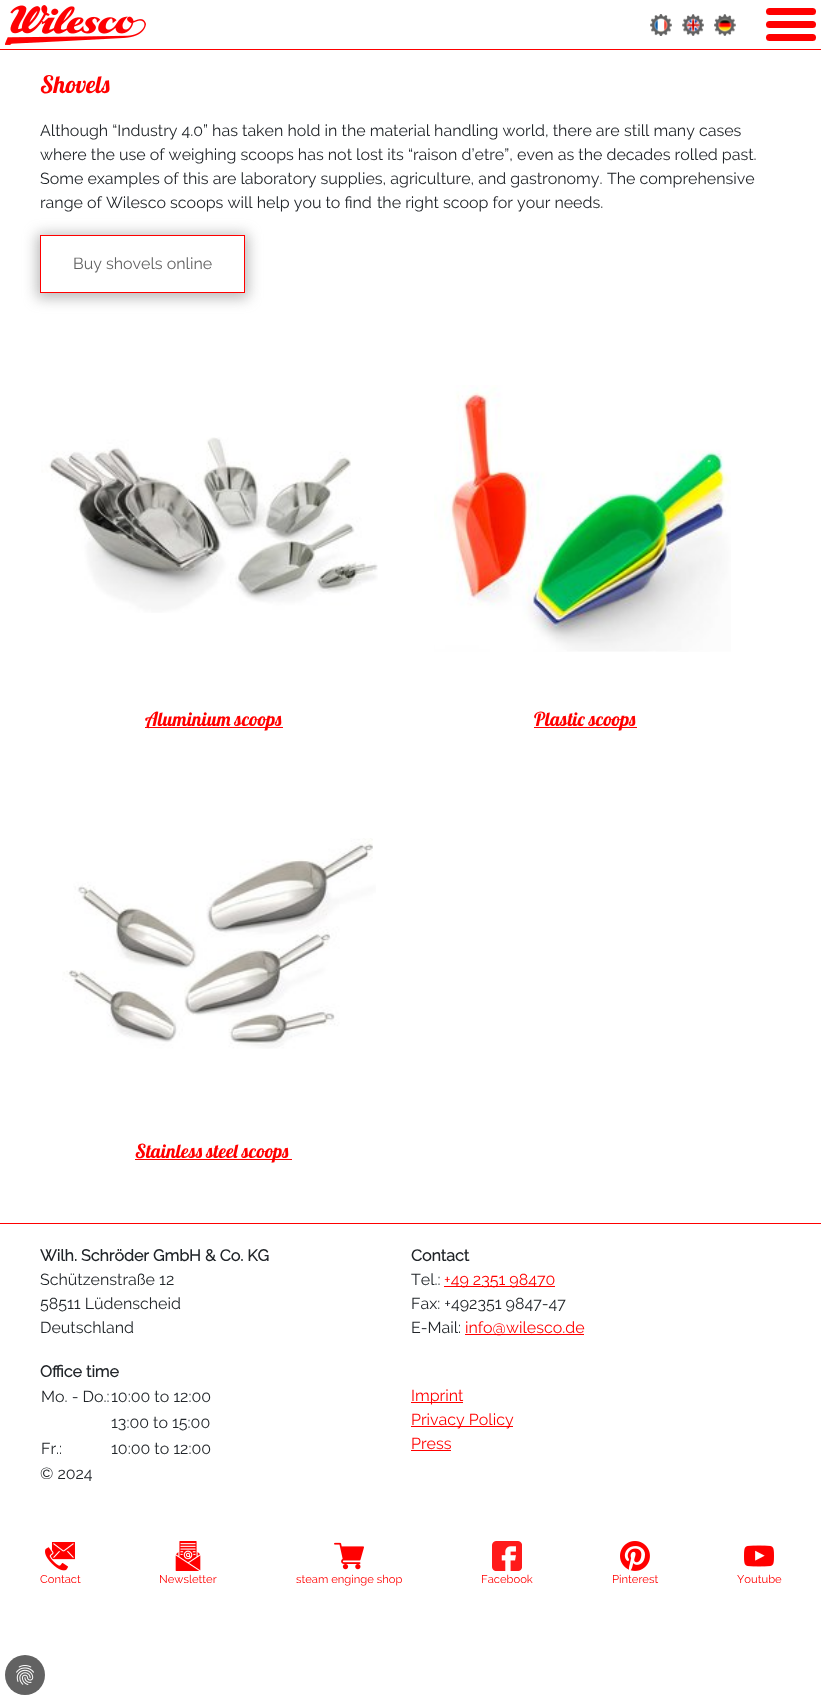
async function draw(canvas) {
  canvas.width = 821
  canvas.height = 1700
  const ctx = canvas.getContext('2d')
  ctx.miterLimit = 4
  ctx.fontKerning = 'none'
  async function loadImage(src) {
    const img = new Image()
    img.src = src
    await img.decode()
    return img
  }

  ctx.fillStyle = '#fff'
  ctx.fillRect(0, 0, 821, 1700)
  ctx.fillStyle = '#f00'
  ctx.fillRect(0, 49, 821, 1)
  ctx.drawImage(await loadImage('image0.png'), 5, 5, 141, 40)
  ctx.drawImage(await loadImage('image1.png'), 650, 14, 22, 22)
  ctx.drawImage(await loadImage('image2.png'), 682, 14, 22, 22)
  ctx.drawImage(await loadImage('image3.png'), 714, 14, 22, 22)
  ctx.beginPath()
  ctx.roundRect(766, 8, 50, 7, 3.5)
  ctx.fill()
  ctx.beginPath()
  ctx.roundRect(766, 21, 50, 7, 3.5)
  ctx.fill()
  ctx.beginPath()
  ctx.roundRect(766, 34, 50, 7, 3.5)
  ctx.fill()
  ctx.font = '24px Lobster'
  ctx.fillText('Shovels', 40, 93)
  ctx.font = '16px Raleway'
  ctx.fillStyle = '#212529'
  ctx.fillText('Although “Industry 4.0” has taken hold in the material handling world, there are', 40, 136)
  ctx.fillText('still many cases', 624, 136)
  ctx.fillText('where the use of weighing scoops has not lost its “raison d’etre”,', 40, 160)
  ctx.fillText('even as the decades rolled past.', 517, 160)
  ctx.fillText('Some examples of this are laboratory supplies, agriculture, and gastronomy.', 40, 184)
  ctx.fillText('The comprehensive', 607, 184)
  ctx.fillText('range of Wilesco scoops will help you to find', 40, 208)
  ctx.fillText('the right scoop for your needs.', 377, 208)
  ctx.save()
  ctx.beginPath()
  ctx.moveTo(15, 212)
  ctx.lineTo(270, 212)
  ctx.lineTo(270, 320)
  ctx.lineTo(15, 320)
  ctx.closePath()
  ctx.moveTo(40, 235)
  ctx.lineTo(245, 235)
  ctx.lineTo(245, 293)
  ctx.lineTo(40, 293)
  ctx.closePath()
  ctx.clip('evenodd')
  ctx.fillStyle = '#8c8c8c9c'
  ctx.filter = 'blur(7px)'
  ctx.beginPath()
  ctx.rect(37, 234, 211, 64)
  ctx.fill()
  ctx.filter = 'none'
  ctx.restore()
  ctx.strokeStyle = '#f00'
  ctx.strokeRect(40.5, 235.5, 204, 57)
  ctx.fillStyle = '#626262'
  ctx.fillText('Buy shovels online', 73, 269)
  ctx.drawImage(await loadImage('image4.png'), 41, 437, 337, 176)
  ctx.fillStyle = '#f00'
  ctx.fillRect(145, 727, 138, 1)
  ctx.font = '19.25px Lobster'
  ctx.fillText('Aluminium scoops', 145, 726)
  ctx.drawImage(await loadImage('image5.png'), 434, 385, 297, 267)
  ctx.fillRect(534, 727, 103, 1)
  ctx.fillText('Plastic scoops', 534, 726)
  ctx.drawImage(await loadImage('image6.png'), 62, 838, 314, 211)
  ctx.fillRect(135, 1159, 157, 1)
  ctx.fillText('Stainless steel scoops', 135, 1158)
  ctx.fillRect(0, 1223, 821, 1)
  ctx.font = 'bold 16px Raleway'
  ctx.fillStyle = '#212529'
  ctx.fillText('Wilh. Schröder GmbH & Co. KG', 40, 1261)
  ctx.font = '16px Raleway'
  ctx.fillText('Schützenstraße 12', 40, 1285)
  ctx.fillText('58511 Lüdenscheid', 40, 1309)
  ctx.fillText('Deutschland', 40, 1333)
  ctx.font = 'bold 16px Raleway'
  ctx.fillText('Contact', 411, 1261)
  ctx.font = '16px Raleway'
  ctx.fillText('Tel.:', 411, 1285)
  ctx.fillStyle = '#f00'
  ctx.fillRect(444, 1286, 111, 1)
  ctx.fillText('+49 2351 98470', 444, 1285)
  ctx.fillStyle = '#212529'
  ctx.fillText('Fax: +492351 9847-47', 411, 1309)
  ctx.fillText('E-Mail:', 411, 1333)
  ctx.fillStyle = '#f00'
  ctx.fillRect(465, 1334, 119, 1)
  ctx.fillText('info@wilesco.de', 465, 1333)
  ctx.font = 'bold 16px Raleway'
  ctx.fillStyle = '#212529'
  ctx.fillText('Office time', 40, 1377)
  ctx.font = '16px Raleway'
  ctx.fillText('Mo. - Do.:', 41, 1402)
  ctx.fillText('10:00 to 12:00', 111, 1402)
  ctx.fillText('13:00 to 15:00', 111, 1428)
  ctx.fillText('Fr.:', 41, 1454)
  ctx.fillText('10:00 to 12:00', 111, 1454)
  ctx.fillText('© 2024', 40, 1479)
  ctx.fillStyle = '#f00'
  ctx.fillRect(411, 1402, 52, 1)
  ctx.fillText('Imprint', 411, 1401)
  ctx.fillRect(411, 1426, 102, 1)
  ctx.fillText('Privacy Policy', 411, 1425)
  ctx.fillText('Press', 411, 1449)
  ctx.fillRect(411, 1450, 40, 1)
  ctx.drawImage(await loadImage('image7.png'), 45, 1542, 30, 29)
  ctx.font = '11.25px Raleway'
  ctx.fillText('Contact', 40, 1583)
  ctx.drawImage(await loadImage('image8.png'), 175, 1541, 26, 30)
  ctx.fillText('Newsletter', 159, 1583)
  ctx.drawImage(await loadImage('image9.png'), 334, 1542, 30, 28)
  ctx.fillText('steam enginge shop', 296, 1583)
  ctx.drawImage(await loadImage('image10.png'), 492, 1541, 30, 30)
  ctx.fillText('Facebook', 481, 1583)
  ctx.drawImage(await loadImage('image11.png'), 620, 1541, 30, 30)
  ctx.fillText('Pinterest', 612, 1583)
  ctx.drawImage(await loadImage('image12.png'), 744, 1545, 30, 22)
  ctx.fillText('Youtube', 737, 1583)
  ctx.fillStyle = '#626262'
  ctx.beginPath()
  ctx.arc(25, 1675, 20, 0, 2 * Math.PI)
  ctx.fill()
  ctx.drawImage(await loadImage('image13.png'), 16, 1665, 18, 20)
}

draw(document.querySelector('canvas'))
